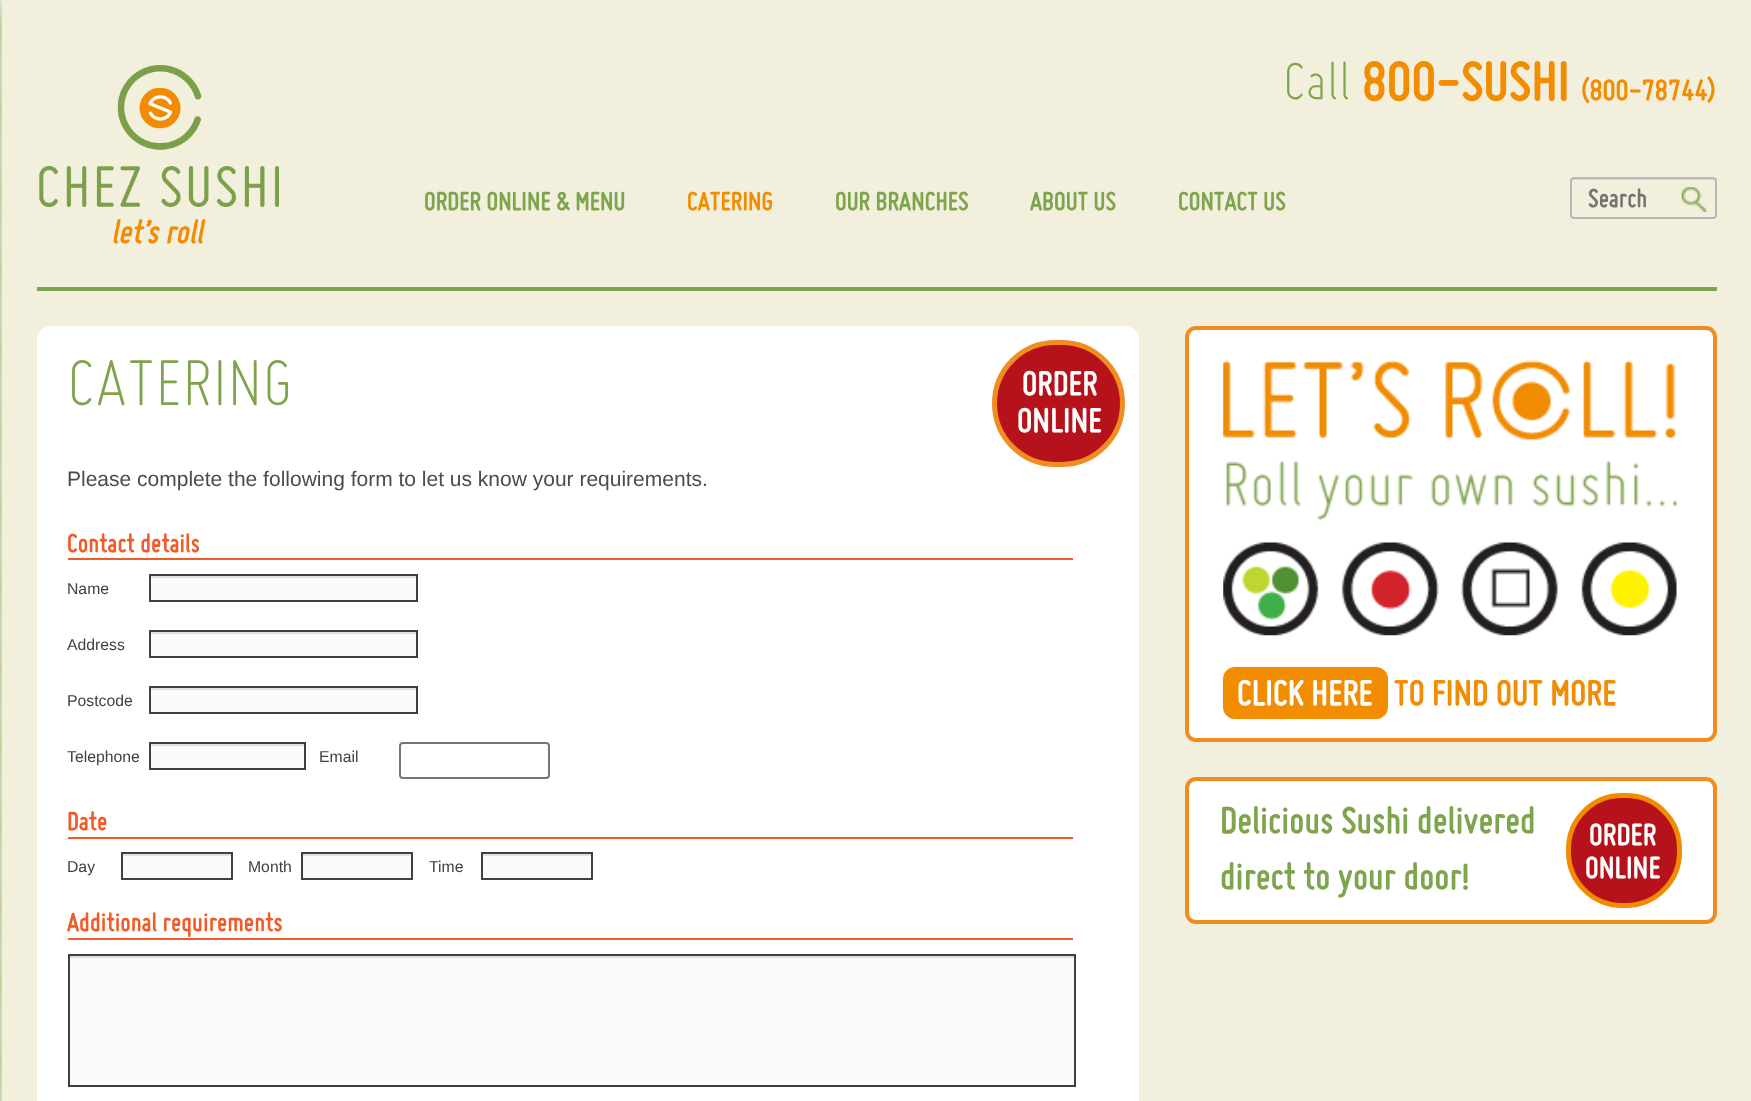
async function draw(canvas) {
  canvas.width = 1751
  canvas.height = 1101
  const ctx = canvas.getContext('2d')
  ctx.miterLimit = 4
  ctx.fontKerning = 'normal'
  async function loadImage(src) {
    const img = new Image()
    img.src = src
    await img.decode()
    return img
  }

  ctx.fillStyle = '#fff'
  ctx.fillRect(0, 0, 1751, 1101)
  ctx.drawImage(await loadImage('image0.png'), 0, 0, 2, 1101)
  ctx.fillStyle = '#7ea44d'
  ctx.filter = 'blur(12px)'
  ctx.beginPath()
  ctx.rect(2, -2, 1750, 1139)
  ctx.fill()
  ctx.filter = 'none'
  ctx.fillStyle = '#f2efdd'
  ctx.fillRect(2, 0, 1749, 1101)
  ctx.fillStyle = '#f3efdb40'
  ctx.fillRect(1, 0, 1, 1101)
  ctx.fillStyle = '#7ea44d'
  ctx.fillRect(37, 287, 1680, 4)
  ctx.drawImage(await loadImage('image1.png'), 39, 65, 240, 179)
  ctx.font = 'italic 300 59.5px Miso'
  ctx.fillText('Call', 1283, 100)
  ctx.font = 'italic bold 59.5px Miso'
  ctx.fillStyle = '#f28c01'
  ctx.fillText('800-SUSHI', 1362, 100)
  ctx.font = 'italic bold 31.5px Miso'
  ctx.fillText('(800-78744)', 1581, 100)
  ctx.font = 'italic bold 28px Miso'
  ctx.fillStyle = '#7ea44d'
  ctx.fillText('ORDER ONLINE & MENU', 424, 210)
  ctx.fillStyle = '#f28c01'
  ctx.fillText('CATERING', 687, 210)
  ctx.fillStyle = '#7ea44d'
  ctx.fillText('OUR BRANCHES', 835, 210)
  ctx.fillText('ABOUT US', 1030, 210)
  ctx.fillText('CONTACT US', 1178, 210)
  ctx.drawImage(await loadImage('image2.png'), 1681, 187, 26, 25)
  ctx.fillStyle = '#dad7c7'
  ctx.beginPath()
  ctx.moveTo(1573, 180)
  ctx.lineTo(1713, 180)
  ctx.bezierCurveTo(1714, 180, 1715, 181, 1715, 182)
  ctx.bezierCurveTo(1715, 181, 1715, 180, 1714, 179)
  ctx.lineTo(1574, 179)
  ctx.lineTo(1572, 180)
  ctx.lineTo(1572, 182)
  ctx.bezierCurveTo(1572, 181, 1572, 180, 1573, 180)
  ctx.closePath()
  ctx.fill()
  ctx.beginPath()
  ctx.roundRect(1571, 178, 145, 40, 3)
  ctx.strokeStyle = '#b6b7ba'
  ctx.lineWidth = 2
  ctx.stroke()
  ctx.fillStyle = '#757575'
  ctx.fillText('Search', 1588, 207)
  ctx.fillStyle = '#fff'
  ctx.beginPath()
  ctx.roundRect(37, 326, 1102, 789, 14)
  ctx.fill()
  ctx.font = 'italic 300 73.5px Miso'
  ctx.fillStyle = '#7ea44d'
  ctx.fillText('CATERING', 67, 406)
  ctx.fillStyle = '#b5121b'
  ctx.beginPath()
  ctx.roundRect(994.5, 342.5, 128, 122, 61)
  ctx.fill()
  ctx.strokeStyle = '#f08d21'
  ctx.lineWidth = 5
  ctx.stroke()
  ctx.font = 'italic bold 37px Miso'
  ctx.fillStyle = '#fff'
  ctx.fillText('ORDER', 1022, 395)
  ctx.fillText('ONLINE', 1017, 432)
  ctx.font = '21px Liberation Sans'
  ctx.fillStyle = '#4b4b4b'
  ctx.fillText('Please complete the following form to let us know your requirements.', 67, 486)
  ctx.fillStyle = '#f15a29'
  ctx.fillRect(68, 558, 1005, 2)
  ctx.font = 'italic bold 28px Miso'
  ctx.fillText('Contact details', 67, 552)
  ctx.font = '15.75px Liberation Sans'
  ctx.fillStyle = '#404040'
  ctx.fillText('Name', 67, 594)
  ctx.fillStyle = '#fafafa'
  ctx.fillRect(151, 578, 265, 22)
  ctx.fillStyle = '#e1e1e1'
  ctx.fillRect(151, 576, 266, 2)
  ctx.strokeStyle = '#404040'
  ctx.lineWidth = 2
  ctx.strokeRect(150, 575, 267, 26)
  ctx.fillStyle = '#404040'
  ctx.fillText('Address', 67, 650)
  ctx.fillStyle = '#fafafa'
  ctx.fillRect(151, 634, 265, 22)
  ctx.fillStyle = '#e1e1e1'
  ctx.fillRect(151, 632, 266, 2)
  ctx.strokeRect(150, 631, 267, 26)
  ctx.fillStyle = '#404040'
  ctx.fillText('Postcode', 67, 706)
  ctx.fillStyle = '#fafafa'
  ctx.fillRect(151, 690, 265, 22)
  ctx.fillStyle = '#e1e1e1'
  ctx.fillRect(151, 688, 266, 2)
  ctx.strokeRect(150, 687, 267, 26)
  ctx.fillStyle = '#404040'
  ctx.fillText('Telephone', 67, 762)
  ctx.fillStyle = '#fafafa'
  ctx.fillRect(151, 746, 153, 22)
  ctx.fillStyle = '#e1e1e1'
  ctx.fillRect(151, 744, 154, 2)
  ctx.strokeRect(150, 743, 155, 26)
  ctx.fillStyle = '#404040'
  ctx.fillText('Email', 319, 762)
  ctx.beginPath()
  ctx.roundRect(400, 743, 149, 35, 3)
  ctx.strokeStyle = '#767676'
  ctx.stroke()
  ctx.fillStyle = '#f15a29'
  ctx.fillRect(68, 837, 1005, 2)
  ctx.font = 'italic bold 28px Miso'
  ctx.fillText('Date', 67, 830)
  ctx.font = '15.75px Liberation Sans'
  ctx.fillStyle = '#404040'
  ctx.fillText('Day', 67, 872)
  ctx.fillStyle = '#fafafa'
  ctx.fillRect(123, 856, 108, 22)
  ctx.fillStyle = '#e1e1e1'
  ctx.fillRect(123, 854, 108, 2)
  ctx.strokeStyle = '#404040'
  ctx.strokeRect(122, 853, 110, 26)
  ctx.fillStyle = '#404040'
  ctx.fillText('Month', 248, 872)
  ctx.fillStyle = '#fafafa'
  ctx.fillRect(303, 856, 108, 22)
  ctx.fillStyle = '#e1e1e1'
  ctx.fillRect(303, 854, 108, 2)
  ctx.strokeRect(302, 853, 110, 26)
  ctx.fillStyle = '#404040'
  ctx.fillText('Time', 429, 872)
  ctx.fillStyle = '#fafafa'
  ctx.fillRect(483, 856, 108, 22)
  ctx.fillStyle = '#e1e1e1'
  ctx.fillRect(483, 854, 109, 2)
  ctx.strokeRect(482, 853, 110, 26)
  ctx.fillStyle = '#f15a29'
  ctx.fillRect(68, 938, 1005, 2)
  ctx.font = 'italic bold 28px Miso'
  ctx.fillText('Additional requirements', 67, 931)
  ctx.fillStyle = '#fafafa'
  ctx.fillRect(70, 958, 1004, 127)
  ctx.fillStyle = '#e1e1e1'
  ctx.fillRect(70, 956, 1005, 2)
  ctx.strokeRect(69, 955, 1006, 131)
  ctx.fillStyle = '#fff'
  ctx.beginPath()
  ctx.roundRect(1187, 328, 528, 412, 9)
  ctx.fill()
  ctx.strokeStyle = '#f08d21'
  ctx.lineWidth = 4
  ctx.stroke()
  ctx.drawImage(await loadImage('image3.png'), 1223, 360, 454, 161)
  ctx.drawImage(await loadImage('image4.png'), 1223, 542, 454, 94)
  ctx.fillStyle = '#f28c01'
  ctx.beginPath()
  ctx.roundRect(1223, 667, 165, 52, 12)
  ctx.fill()
  ctx.font = 'italic bold 38.5px Miso'
  ctx.fillStyle = '#fff'
  ctx.fillText('CLICK HERE', 1237, 705)
  ctx.fillStyle = '#f28c01'
  ctx.fillText('TO FIND OUT MORE', 1394, 705)
  ctx.fillStyle = '#fff'
  ctx.beginPath()
  ctx.roundRect(1187, 779, 528, 143, 9)
  ctx.fill()
  ctx.stroke()
  ctx.font = 'italic bold 40.25px Miso'
  ctx.fillStyle = '#7ea44d'
  ctx.fillText('Delicious Sushi delivered', 1220, 833)
  ctx.fillText('direct to your door!', 1220, 889)
  ctx.fillStyle = '#b5121b'
  ctx.beginPath()
  ctx.roundRect(1568.5, 795.5, 111, 110, 53.5)
  ctx.fill()
  ctx.strokeStyle = '#f18b01'
  ctx.lineWidth = 5
  ctx.stroke()
  ctx.font = 'italic bold 33px Miso'
  ctx.fillStyle = '#fff'
  ctx.fillText('ORDER', 1589, 845)
  ctx.fillText('ONLINE', 1585, 878)
}

draw(document.querySelector('canvas'))
